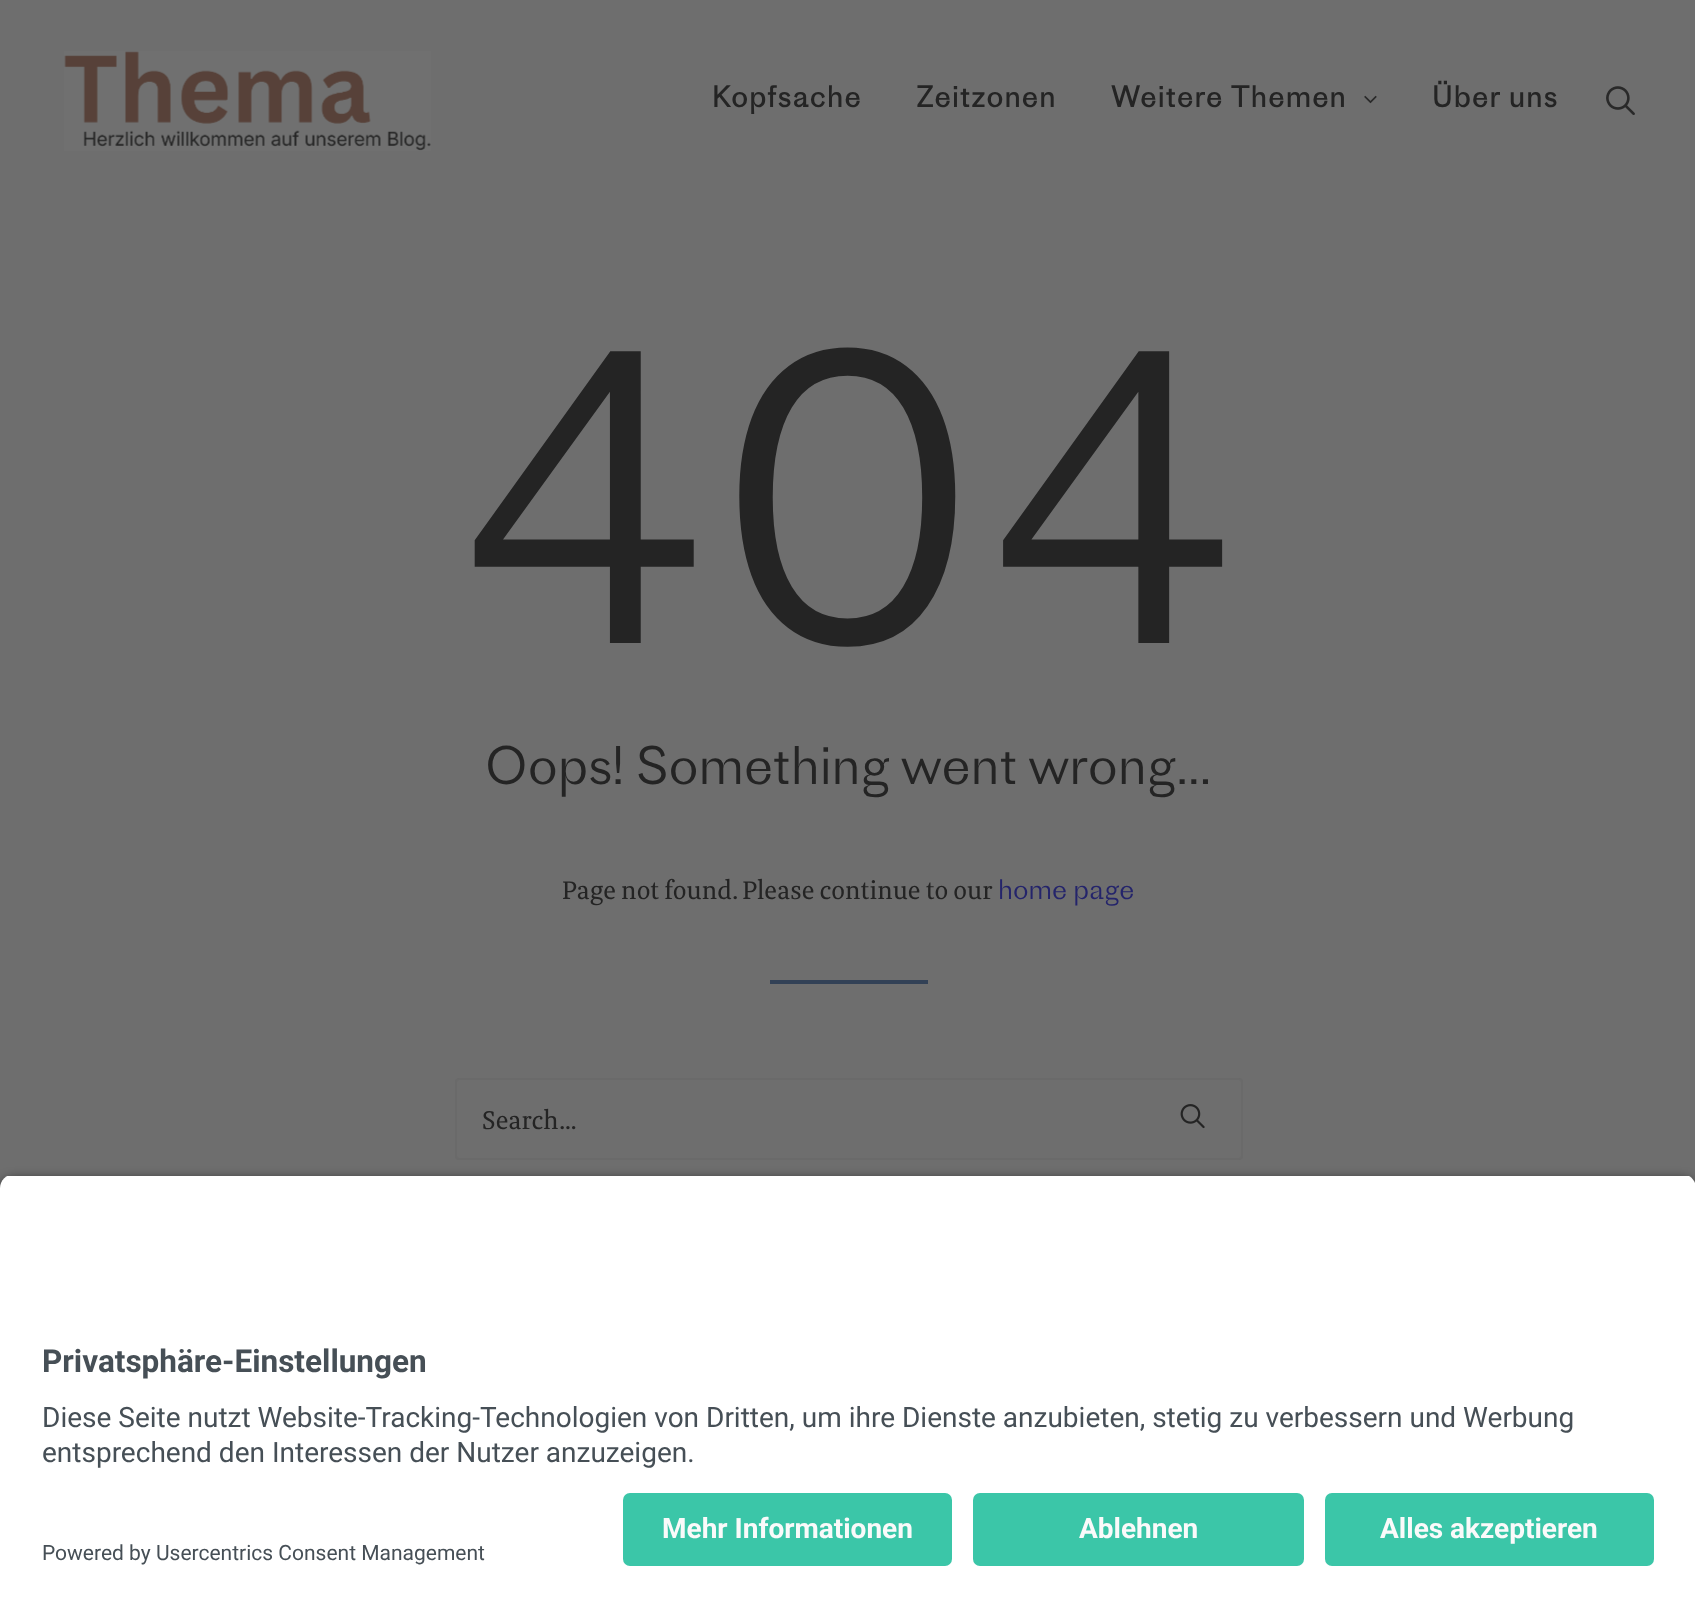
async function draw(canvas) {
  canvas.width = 1695
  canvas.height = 1608
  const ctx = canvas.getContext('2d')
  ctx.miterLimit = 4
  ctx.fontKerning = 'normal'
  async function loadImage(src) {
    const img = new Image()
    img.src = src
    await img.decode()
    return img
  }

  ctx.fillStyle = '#6e6e6e'
  ctx.fillRect(0, 0, 1695, 1608)
  ctx.drawImage(await loadImage('image0.png'), 64, 51, 367, 100)
  ctx.letterSpacing = '1.4px'
  ctx.font = 'bold 28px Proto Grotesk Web'
  ctx.fillStyle = '#242424'
  ctx.fillText('Kopfsache', 712, 107)
  ctx.fillText('Zeitzonen', 916, 107)
  ctx.fillText('Weitere Themen', 1111, 107)
  ctx.drawImage(await loadImage('image1.png'), 1364, 95, 13, 9)
  ctx.fillText('Über uns', 1432, 107)
  ctx.drawImage(await loadImage('image2.png'), 1606, 86, 29, 29)
  ctx.letterSpacing = '0px'
  ctx.font = '300 389px Proto Grotesk Web'
  ctx.fillText('404', 454, 643)
  ctx.font = '300 50.75px Proto Grotesk Web'
  ctx.fillText('Oops! Something went wrong…', 485, 784)
  ctx.font = '26.25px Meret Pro'
  ctx.fillText('Page not found. Please continue to our', 562, 899)
  ctx.font = '300 26.25px Proto Grotesk Web'
  ctx.fillStyle = '#24246b'
  ctx.fillText('home page', 998, 899)
  ctx.fillStyle = '#324156'
  ctx.fillRect(770, 980, 158, 4)
  ctx.beginPath()
  ctx.roundRect(456, 1079, 786, 80, 3)
  ctx.strokeStyle = '#6a6a6a'
  ctx.lineWidth = 2
  ctx.stroke()
  ctx.font = '26.25px Meret Pro'
  ctx.fillStyle = '#242424'
  ctx.fillText('Search…', 482, 1129)
  ctx.drawImage(await loadImage('image3.png'), 1180, 1104, 25, 25)
  ctx.fillStyle = '#000000cc'
  ctx.filter = 'blur(6px)'
  ctx.beginPath()
  ctx.roundRect(0, 1180, 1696, 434, 14)
  ctx.fill()
  ctx.filter = 'none'
  ctx.save()
  ctx.beginPath()
  ctx.moveTo(14, 1174)
  ctx.lineTo(1682, 1174)
  ctx.bezierCurveTo(1689.5, 1174, 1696, 1180.5, 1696, 1188)
  ctx.lineTo(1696, 1479)
  ctx.lineTo(0, 1479)
  ctx.lineTo(0, 1188)
  ctx.bezierCurveTo(0, 1180.5, 6.5, 1174, 14, 1174)
  ctx.closePath()
  ctx.clip()
  ctx.fillStyle = '#fff'
  ctx.fillRect(0, 1176, 1695, 303)
  ctx.restore()
  ctx.font = 'bold 31.5px Roboto'
  ctx.fillStyle = '#464f56'
  ctx.fillText('Privatsphäre-Einstellungen', 42, 1372)
  ctx.font = '28px Roboto'
  ctx.fillText('Diese Seite nutzt Website-Tracking-Technologien von Dritten, um ihre Dienste anzubieten, stetig zu verbessern und Werbung', 42, 1427)
  ctx.fillText('entsprechend den Interessen der Nutzer anzuzeigen.', 42, 1462)
  ctx.fillStyle = '#fff'
  ctx.fillRect(0, 1479, 1695, 129)
  ctx.fillStyle = '#3bc6a8'
  ctx.beginPath()
  ctx.roundRect(623, 1493, 329, 73, 7)
  ctx.fill()
  ctx.font = 'bold 28px Roboto'
  ctx.fillStyle = '#fafafa'
  ctx.fillText('Mehr Informationen', 662, 1538)
  ctx.fillStyle = '#3bc6a8'
  ctx.beginPath()
  ctx.roundRect(973, 1493, 331, 73, 7)
  ctx.fill()
  ctx.fillStyle = '#fafafa'
  ctx.fillText('Ablehnen', 1079, 1538)
  ctx.fillStyle = '#3bc6a8'
  ctx.beginPath()
  ctx.roundRect(1325, 1493, 329, 73, 7)
  ctx.fill()
  ctx.fillStyle = '#fafafa'
  ctx.fillText('Alles akzeptieren', 1380, 1538)
  ctx.font = '21px Roboto'
  ctx.fillStyle = '#464f56'
  ctx.fillText('Powered by Usercentrics Consent Management', 42, 1560)
}

draw(document.querySelector('canvas'))
